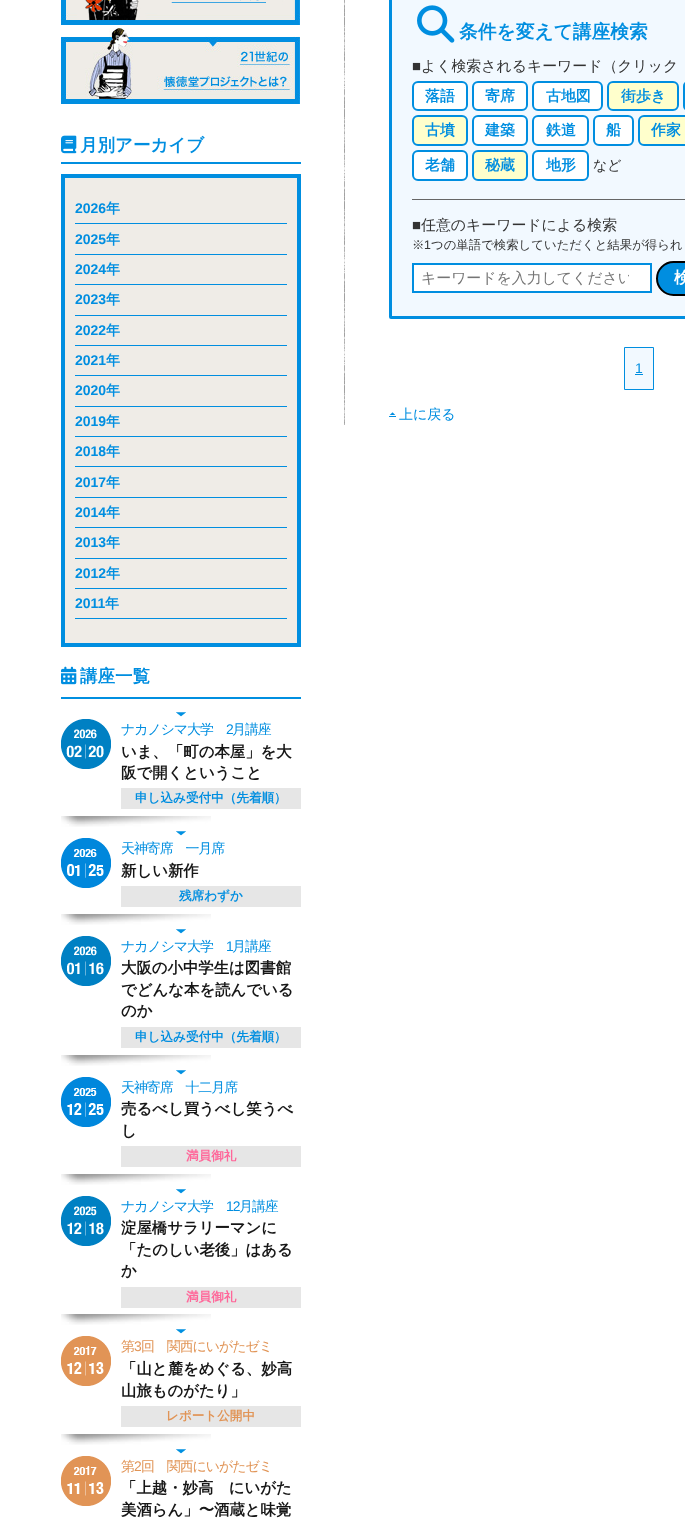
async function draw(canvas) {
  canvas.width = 685
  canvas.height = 1526
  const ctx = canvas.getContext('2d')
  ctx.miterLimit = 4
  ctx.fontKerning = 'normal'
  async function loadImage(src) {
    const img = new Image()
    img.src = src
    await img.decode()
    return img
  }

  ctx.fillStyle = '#fff'
  ctx.fillRect(0, 0, 685, 1526)
  ctx.drawImage(await loadImage('image0.png'), 61, 0, 239, 25)
  ctx.drawImage(await loadImage('image1.png'), 61, 28, 239, 76)
  ctx.fillStyle = '#008fe0'
  ctx.fillRect(61, 162, 240, 2)
  ctx.drawImage(await loadImage('image2.png'), 61, 135, 16, 19)
  ctx.font = 'bold 17.5px WenQuanYi Zen Hei'
  ctx.fillStyle = '#008ee0'
  ctx.fillText('月別アーカイブ', 80, 151)
  ctx.fillStyle = '#efece7'
  ctx.beginPath()
  ctx.rect(63, 176, 236, 469)
  ctx.fill()
  ctx.strokeStyle = '#008ee0'
  ctx.lineWidth = 4
  ctx.stroke()
  ctx.fillStyle = '#008ee0'
  ctx.fillRect(75, 223, 212, 1)
  ctx.font = 'bold 14px Liberation Sans'
  ctx.fillText('2026', 75, 213)
  ctx.font = 'bold 14px WenQuanYi Zen Hei'
  ctx.fillText('年', 106, 213)
  ctx.fillRect(75, 254, 212, 1)
  ctx.font = 'bold 14px Liberation Sans'
  ctx.fillText('2025', 75, 244)
  ctx.font = 'bold 14px WenQuanYi Zen Hei'
  ctx.fillText('年', 106, 244)
  ctx.fillRect(75, 284, 212, 1)
  ctx.font = 'bold 14px Liberation Sans'
  ctx.fillText('2024', 75, 274)
  ctx.font = 'bold 14px WenQuanYi Zen Hei'
  ctx.fillText('年', 106, 274)
  ctx.fillRect(75, 315, 212, 1)
  ctx.font = 'bold 14px Liberation Sans'
  ctx.fillText('2023', 75, 304)
  ctx.font = 'bold 14px WenQuanYi Zen Hei'
  ctx.fillText('年', 106, 304)
  ctx.fillRect(75, 345, 212, 1)
  ctx.font = 'bold 14px Liberation Sans'
  ctx.fillText('2022', 75, 335)
  ctx.font = 'bold 14px WenQuanYi Zen Hei'
  ctx.fillText('年', 106, 335)
  ctx.fillRect(75, 375, 212, 1)
  ctx.font = 'bold 14px Liberation Sans'
  ctx.fillText('2021', 75, 365)
  ctx.font = 'bold 14px WenQuanYi Zen Hei'
  ctx.fillText('年', 106, 365)
  ctx.fillRect(75, 406, 212, 1)
  ctx.font = 'bold 14px Liberation Sans'
  ctx.fillText('2020', 75, 395)
  ctx.font = 'bold 14px WenQuanYi Zen Hei'
  ctx.fillText('年', 106, 395)
  ctx.fillRect(75, 436, 212, 1)
  ctx.font = 'bold 14px Liberation Sans'
  ctx.fillText('2019', 75, 426)
  ctx.font = 'bold 14px WenQuanYi Zen Hei'
  ctx.fillText('年', 106, 426)
  ctx.fillRect(75, 466, 212, 1)
  ctx.font = 'bold 14px Liberation Sans'
  ctx.fillText('2018', 75, 456)
  ctx.font = 'bold 14px WenQuanYi Zen Hei'
  ctx.fillText('年', 106, 456)
  ctx.fillRect(75, 497, 212, 1)
  ctx.font = 'bold 14px Liberation Sans'
  ctx.fillText('2017', 75, 487)
  ctx.font = 'bold 14px WenQuanYi Zen Hei'
  ctx.fillText('年', 106, 487)
  ctx.fillRect(75, 527, 212, 1)
  ctx.font = 'bold 14px Liberation Sans'
  ctx.fillText('2014', 75, 517)
  ctx.font = 'bold 14px WenQuanYi Zen Hei'
  ctx.fillText('年', 106, 517)
  ctx.fillRect(75, 558, 212, 1)
  ctx.font = 'bold 14px Liberation Sans'
  ctx.fillText('2013', 75, 547)
  ctx.font = 'bold 14px WenQuanYi Zen Hei'
  ctx.fillText('年', 106, 547)
  ctx.fillRect(75, 588, 212, 1)
  ctx.font = 'bold 14px Liberation Sans'
  ctx.fillText('2012', 75, 578)
  ctx.font = 'bold 14px WenQuanYi Zen Hei'
  ctx.fillText('年', 106, 578)
  ctx.fillRect(75, 618, 212, 1)
  ctx.font = 'bold 14px Liberation Sans'
  ctx.fillText('2011', 75, 608)
  ctx.font = 'bold 14px WenQuanYi Zen Hei'
  ctx.fillText('年', 105, 608)
  ctx.fillStyle = '#008fe0'
  ctx.fillRect(61, 697, 240, 2)
  ctx.drawImage(await loadImage('image3.png'), 61, 666, 16, 19)
  ctx.font = 'bold 17.5px WenQuanYi Zen Hei'
  ctx.fillStyle = '#008ee0'
  ctx.fillText('講座一覧', 80, 682)
  ctx.drawImage(await loadImage('image4.png'), 61, 816, 150, 11)
  ctx.drawImage(await loadImage('image5.png'), 176, 712, 10, 5)
  ctx.drawImage(await loadImage('image6.png'), 61, 719, 50, 50)
  ctx.letterSpacing = '-1px'
  ctx.font = '500 13.9px WenQuanYi Zen Hei'
  ctx.fillText('ナカノシマ大学', 121, 734)
  ctx.font = '13.9px Liberation Sans'
  ctx.fillText('2', 226, 734)
  ctx.font = '500 13.9px WenQuanYi Zen Hei'
  ctx.fillText('月講座', 232, 734)
  ctx.letterSpacing = '0px'
  ctx.font = 'bold 15.4px WenQuanYi Zen Hei'
  ctx.fillStyle = '#161616'
  ctx.fillText('いま、「町の本屋」を大', 121, 757)
  ctx.fillText('阪で開くということ', 121, 778)
  ctx.fillStyle = '#e6e6e6'
  ctx.fillRect(121, 788, 180, 21)
  ctx.font = 'bold 12.6px WenQuanYi Zen Hei'
  ctx.fillStyle = '#008ee0'
  ctx.fillText('申し込み受付中（先着順）', 135, 802)
  ctx.drawImage(await loadImage('image4.png'), 61, 914, 150, 11)
  ctx.drawImage(await loadImage('image5.png'), 176, 831, 10, 5)
  ctx.drawImage(await loadImage('image7.png'), 61, 838, 50, 50)
  ctx.letterSpacing = '-1px'
  ctx.font = '500 13.9px WenQuanYi Zen Hei'
  ctx.fillText('天神寄席　一月席', 121, 853)
  ctx.letterSpacing = '0px'
  ctx.font = 'bold 15.4px WenQuanYi Zen Hei'
  ctx.fillStyle = '#161616'
  ctx.fillText('新しい新作', 121, 876)
  ctx.fillStyle = '#e6e6e6'
  ctx.fillRect(121, 886, 180, 21)
  ctx.font = 'bold 12.6px WenQuanYi Zen Hei'
  ctx.fillStyle = '#008ee0'
  ctx.fillText('残席わずか', 179, 900)
  ctx.drawImage(await loadImage('image4.png'), 61, 1055, 150, 11)
  ctx.drawImage(await loadImage('image5.png'), 176, 929, 10, 5)
  ctx.drawImage(await loadImage('image8.png'), 61, 936, 50, 50)
  ctx.letterSpacing = '-1px'
  ctx.font = '500 13.9px WenQuanYi Zen Hei'
  ctx.fillText('ナカノシマ大学', 121, 951)
  ctx.font = '13.9px Liberation Sans'
  ctx.fillText('1', 226, 951)
  ctx.font = '500 13.9px WenQuanYi Zen Hei'
  ctx.fillText('月講座', 232, 951)
  ctx.letterSpacing = '0px'
  ctx.font = 'bold 15.4px WenQuanYi Zen Hei'
  ctx.fillStyle = '#161616'
  ctx.fillText('大阪の小中学生は図書館', 121, 973)
  ctx.fillText('でどんな本を読んでいる', 121, 995)
  ctx.fillText('のか', 121, 1016)
  ctx.fillStyle = '#e6e6e6'
  ctx.fillRect(121, 1027, 180, 21)
  ctx.font = 'bold 12.6px WenQuanYi Zen Hei'
  ctx.fillStyle = '#008ee0'
  ctx.fillText('申し込み受付中（先着順）', 135, 1041)
  ctx.drawImage(await loadImage('image4.png'), 61, 1174, 150, 11)
  ctx.drawImage(await loadImage('image5.png'), 176, 1070, 10, 5)
  ctx.drawImage(await loadImage('image9.png'), 61, 1077, 50, 50)
  ctx.letterSpacing = '-1px'
  ctx.font = '500 13.9px WenQuanYi Zen Hei'
  ctx.fillText('天神寄席　十二月席', 121, 1092)
  ctx.letterSpacing = '0px'
  ctx.font = 'bold 15.4px WenQuanYi Zen Hei'
  ctx.fillStyle = '#161616'
  ctx.fillText('売るべし買うべし笑うべ', 121, 1114)
  ctx.fillText('し', 121, 1136)
  ctx.fillStyle = '#e6e6e6'
  ctx.fillRect(121, 1146, 180, 21)
  ctx.font = 'bold 12.6px WenQuanYi Zen Hei'
  ctx.fillStyle = '#f69'
  ctx.fillText('満員御礼', 186, 1160)
  ctx.drawImage(await loadImage('image4.png'), 61, 1314, 150, 11)
  ctx.drawImage(await loadImage('image5.png'), 176, 1189, 10, 5)
  ctx.drawImage(await loadImage('image10.png'), 61, 1196, 50, 50)
  ctx.letterSpacing = '-1px'
  ctx.font = '500 13.9px WenQuanYi Zen Hei'
  ctx.fillStyle = '#008ee0'
  ctx.fillText('ナカノシマ大学', 121, 1211)
  ctx.font = '13.9px Liberation Sans'
  ctx.fillText('12', 226, 1211)
  ctx.font = '500 13.9px WenQuanYi Zen Hei'
  ctx.fillText('月講座', 239, 1211)
  ctx.letterSpacing = '0px'
  ctx.font = 'bold 15.4px WenQuanYi Zen Hei'
  ctx.fillStyle = '#161616'
  ctx.fillText('淀屋橋サラリーマンに', 121, 1233)
  ctx.fillText('「たのしい老後」はある', 121, 1255)
  ctx.fillText('か', 121, 1276)
  ctx.fillStyle = '#e6e6e6'
  ctx.fillRect(121, 1287, 180, 21)
  ctx.font = 'bold 12.6px WenQuanYi Zen Hei'
  ctx.fillStyle = '#f69'
  ctx.fillText('満員御礼', 186, 1301)
  ctx.drawImage(await loadImage('image4.png'), 61, 1434, 150, 11)
  ctx.drawImage(await loadImage('image5.png'), 176, 1329, 10, 5)
  ctx.drawImage(await loadImage('image11.png'), 61, 1336, 50, 50)
  ctx.letterSpacing = '-1px'
  ctx.font = '500 13.9px WenQuanYi Zen Hei'
  ctx.fillStyle = '#e19456'
  ctx.fillText('第', 121, 1351)
  ctx.font = '13.9px Liberation Sans'
  ctx.fillText('3', 134, 1351)
  ctx.font = '500 13.9px WenQuanYi Zen Hei'
  ctx.fillText('回　関西にいがたゼミ', 141, 1351)
  ctx.letterSpacing = '0px'
  ctx.font = 'bold 15.4px WenQuanYi Zen Hei'
  ctx.fillStyle = '#161616'
  ctx.fillText('「山と麓をめぐる、妙高', 121, 1374)
  ctx.fillText('山旅ものがたり」', 121, 1396)
  ctx.fillStyle = '#e6e6e6'
  ctx.fillRect(121, 1406, 180, 21)
  ctx.font = 'bold 12.6px WenQuanYi Zen Hei'
  ctx.fillStyle = '#e19456'
  ctx.fillText('レポート公開中', 166, 1420)
  ctx.drawImage(await loadImage('image5.png'), 176, 1449, 10, 5)
  ctx.drawImage(await loadImage('image12.png'), 61, 1456, 50, 50)
  ctx.letterSpacing = '-1px'
  ctx.font = '500 13.9px WenQuanYi Zen Hei'
  ctx.fillText('第', 121, 1471)
  ctx.font = '13.9px Liberation Sans'
  ctx.fillText('2', 134, 1471)
  ctx.font = '500 13.9px WenQuanYi Zen Hei'
  ctx.fillText('回　関西にいがたゼミ', 141, 1471)
  ctx.letterSpacing = '0px'
  ctx.font = 'bold 15.4px WenQuanYi Zen Hei'
  ctx.fillStyle = '#161616'
  ctx.fillText('「上越・妙高　にいがた', 121, 1493)
  ctx.fillText('美酒らん」〜酒蔵と味覚', 121, 1515)
  ctx.drawImage(await loadImage('image13.png'), 344, 0, 1, 425)
  ctx.fillStyle = '#f2f9ff'
  ctx.beginPath()
  ctx.roundRect(390.5, -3.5, 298, 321, 0.5)
  ctx.fill()
  ctx.lineWidth = 3
  ctx.stroke()
  ctx.drawImage(await loadImage('image14.png'), 417, 5, 38, 38)
  ctx.font = 'bold 18.75px WenQuanYi Zen Hei'
  ctx.fillStyle = '#008ee0'
  ctx.fillText('条件を変えて講座検索', 459, 38)
  ctx.font = '14.9px Liberation Sans'
  ctx.fillStyle = '#333'
  ctx.fillText('■', 412, 71)
  ctx.font = '500 14.9px WenQuanYi Zen Hei'
  ctx.fillText('よく検索されるキーワード（クリック', 421, 71)
  ctx.fillStyle = '#666'
  ctx.fillRect(412, 199, 273, 1)
  ctx.fillStyle = '#fff'
  ctx.beginPath()
  ctx.roundRect(413, 82, 54, 28, 5)
  ctx.fill()
  ctx.lineWidth = 2
  ctx.stroke()
  ctx.font = 'bold 14.9px WenQuanYi Zen Hei'
  ctx.fillStyle = '#008ee0'
  ctx.fillText('落語', 425, 101)
  ctx.fillStyle = '#fff'
  ctx.beginPath()
  ctx.roundRect(473, 82, 54, 28, 5)
  ctx.fill()
  ctx.stroke()
  ctx.fillStyle = '#008ee0'
  ctx.fillText('寄席', 485, 101)
  ctx.fillStyle = '#fff'
  ctx.beginPath()
  ctx.roundRect(533, 82, 69, 28, 5)
  ctx.fill()
  ctx.stroke()
  ctx.fillStyle = '#008ee0'
  ctx.fillText('古地図', 546, 101)
  ctx.fillStyle = '#ffc'
  ctx.beginPath()
  ctx.roundRect(608, 82, 70, 28, 5)
  ctx.fill()
  ctx.stroke()
  ctx.fillStyle = '#008ee0'
  ctx.fillText('街歩き', 621, 101)
  ctx.beginPath()
  ctx.roundRect(684, 82, 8, 28, 5)
  ctx.stroke()
  ctx.fillStyle = '#ffc'
  ctx.beginPath()
  ctx.roundRect(413, 116, 54, 29, 5)
  ctx.fill()
  ctx.stroke()
  ctx.fillStyle = '#008ee0'
  ctx.fillText('古墳', 425, 135)
  ctx.fillStyle = '#fff'
  ctx.beginPath()
  ctx.roundRect(473, 116, 54, 29, 5)
  ctx.fill()
  ctx.stroke()
  ctx.fillStyle = '#008ee0'
  ctx.fillText('建築', 485, 135)
  ctx.fillStyle = '#fff'
  ctx.beginPath()
  ctx.roundRect(533, 116, 55, 29, 5)
  ctx.fill()
  ctx.stroke()
  ctx.fillStyle = '#008ee0'
  ctx.fillText('鉄道', 546, 135)
  ctx.fillStyle = '#fff'
  ctx.beginPath()
  ctx.roundRect(594, 116, 39, 29, 5)
  ctx.fill()
  ctx.stroke()
  ctx.fillStyle = '#008ee0'
  ctx.fillText('船', 606, 135)
  ctx.fillStyle = '#ffc'
  ctx.beginPath()
  ctx.roundRect(639, 116, 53, 29, 5)
  ctx.fill()
  ctx.stroke()
  ctx.fillStyle = '#008ee0'
  ctx.fillText('作家', 651, 135)
  ctx.fillStyle = '#fff'
  ctx.beginPath()
  ctx.roundRect(413, 151, 54, 29, 5)
  ctx.fill()
  ctx.stroke()
  ctx.fillStyle = '#008ee0'
  ctx.fillText('老舗', 425, 170)
  ctx.fillStyle = '#ffc'
  ctx.beginPath()
  ctx.roundRect(473, 151, 54, 29, 5)
  ctx.fill()
  ctx.stroke()
  ctx.fillStyle = '#008ee0'
  ctx.fillText('秘蔵', 485, 170)
  ctx.fillStyle = '#fff'
  ctx.beginPath()
  ctx.roundRect(533, 151, 55, 29, 5)
  ctx.fill()
  ctx.stroke()
  ctx.fillStyle = '#008ee0'
  ctx.fillText('地形', 546, 170)
  ctx.font = '500 14px WenQuanYi Zen Hei'
  ctx.fillStyle = '#333'
  ctx.fillText('など', 593, 170)
  ctx.font = '14.9px Liberation Sans'
  ctx.fillText('■', 412, 230)
  ctx.font = '500 14.9px WenQuanYi Zen Hei'
  ctx.fillText('任意のキーワードによる検索', 421, 230)
  ctx.font = '500 12.4px WenQuanYi Zen Hei'
  ctx.fillText('※', 412, 249)
  ctx.font = '12.4px Liberation Sans'
  ctx.fillText('1', 424, 249)
  ctx.font = '500 12.4px WenQuanYi Zen Hei'
  ctx.fillText('つの単語で検索していただくと結果が得られ', 431, 249)
  ctx.fillStyle = '#fff'
  ctx.beginPath()
  ctx.rect(413, 264, 238, 28)
  ctx.fill()
  ctx.stroke()
  ctx.save()
  ctx.beginPath()
  ctx.rect(421, 269, 208, 19)
  ctx.clip()
  ctx.font = '500 14.9px WenQuanYi Zen Hei'
  ctx.fillStyle = '#757575'
  ctx.fillText('キーワードを入力してください', 421, 283)
  ctx.restore()
  ctx.fillStyle = '#008ee0'
  ctx.beginPath()
  ctx.roundRect(657, 262, 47, 33, 16.5)
  ctx.fill()
  ctx.strokeStyle = '#000'
  ctx.stroke()
  ctx.font = 'bold 16px WenQuanYi Zen Hei'
  ctx.fillStyle = '#fff'
  ctx.fillText('検', 674, 283)
  ctx.fillStyle = '#f2f9ff'
  ctx.beginPath()
  ctx.rect(624.5, 347.5, 29, 42)
  ctx.fill()
  ctx.strokeStyle = '#008ee0'
  ctx.lineWidth = 1
  ctx.stroke()
  ctx.font = '14px Liberation Sans'
  ctx.fillStyle = '#008ee0'
  ctx.fillText('1', 635, 373)
  ctx.fillRect(635, 374, 8, 1)
  ctx.drawImage(await loadImage('image15.png'), 389, 412, 7, 5)
  ctx.font = '500 14px WenQuanYi Zen Hei'
  ctx.fillText('上に戻る', 399, 419)
}

draw(document.querySelector('canvas'))
